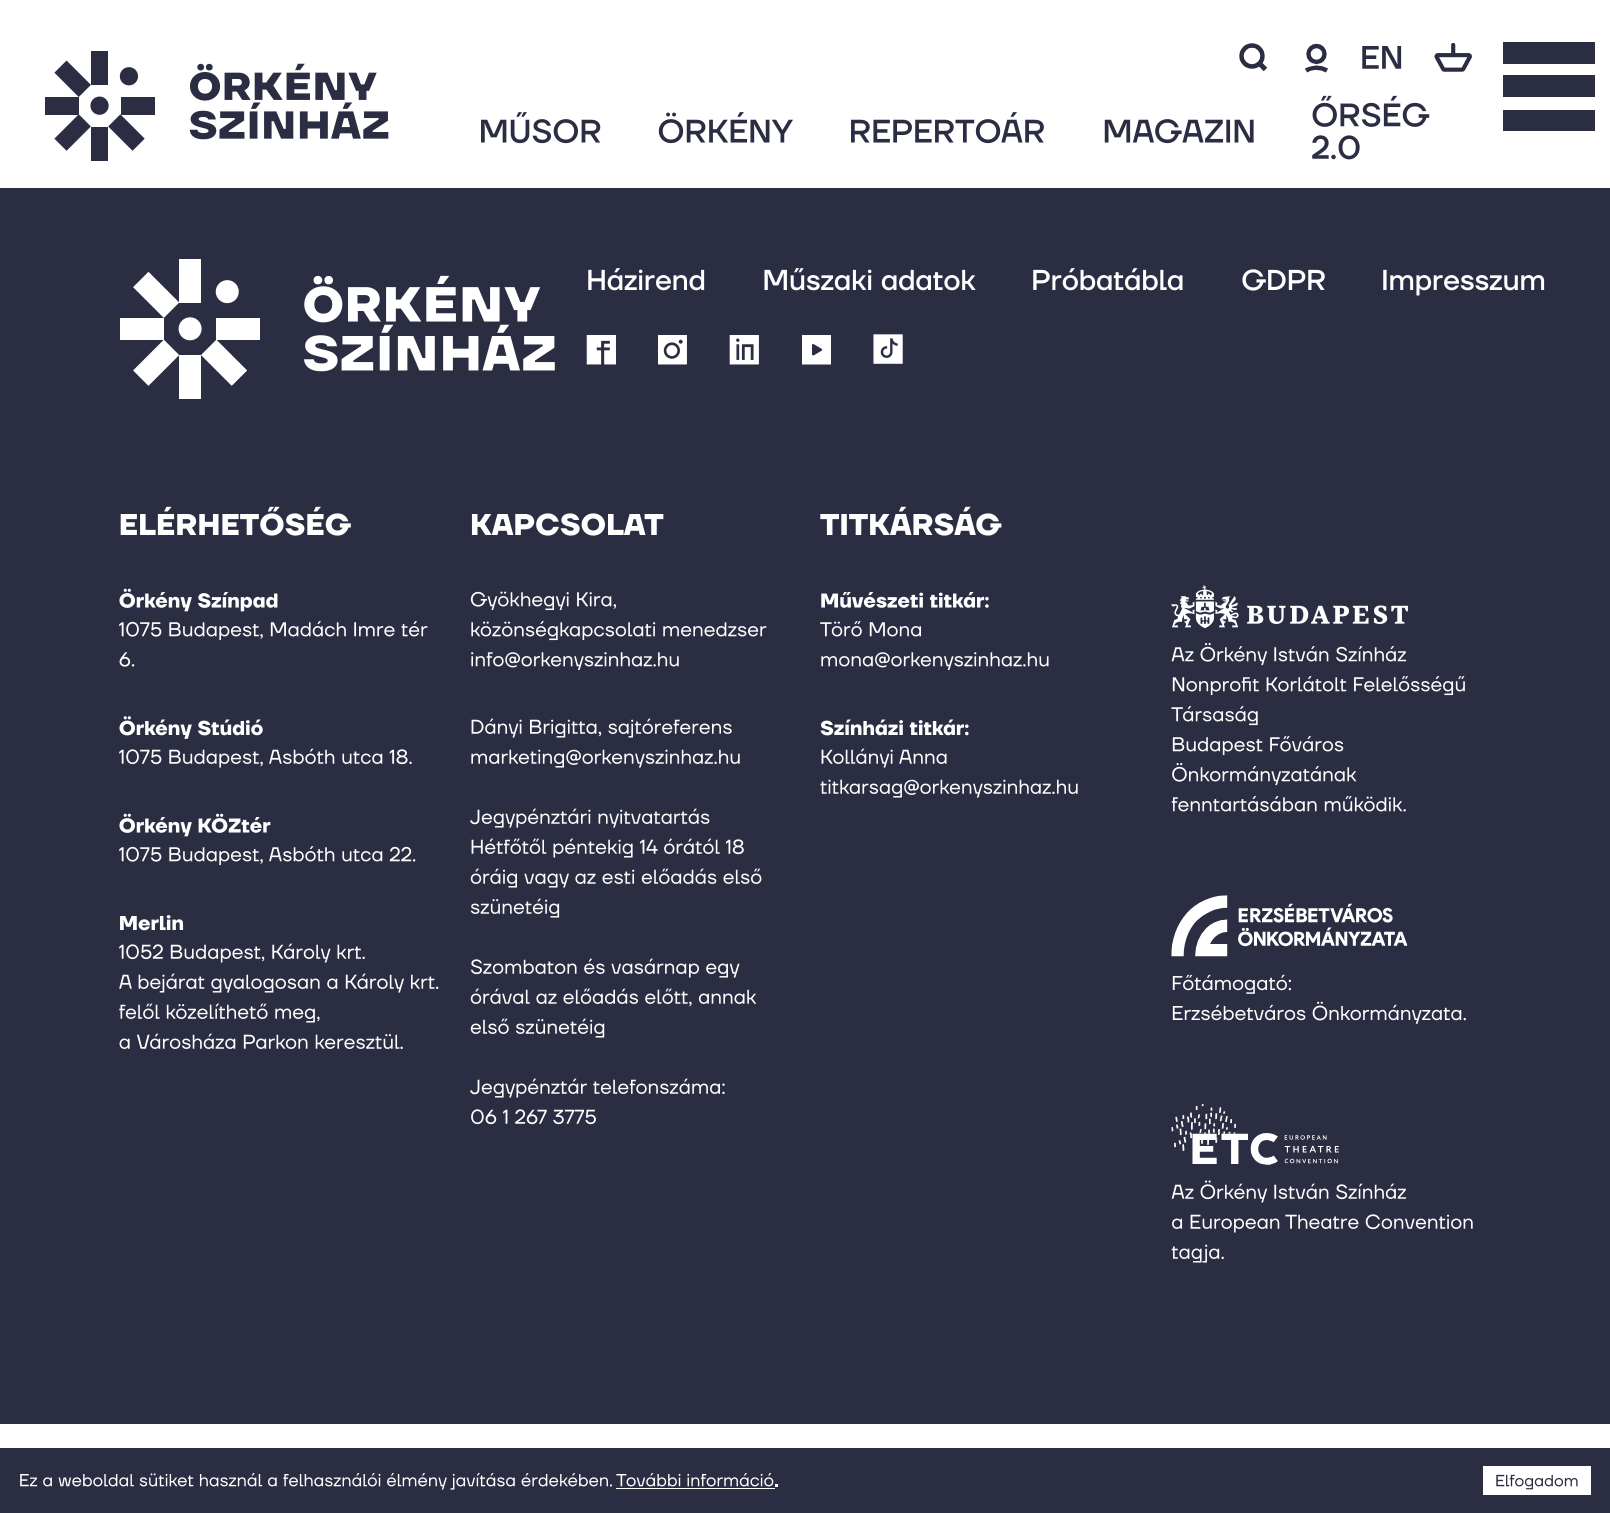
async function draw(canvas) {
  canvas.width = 1610
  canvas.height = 1513
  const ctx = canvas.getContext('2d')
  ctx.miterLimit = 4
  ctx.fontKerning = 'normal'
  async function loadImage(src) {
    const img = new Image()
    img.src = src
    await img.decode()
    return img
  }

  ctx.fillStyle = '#fff'
  ctx.fillRect(0, 0, 1610, 1513)
  ctx.drawImage(await loadImage('image0.png'), 45, 51, 344, 110)
  ctx.beginPath()
  ctx.arc(1252, 56, 10.5, 0, 2 * Math.PI)
  ctx.strokeStyle = '#2b2d42'
  ctx.lineWidth = 4.4
  ctx.stroke()
  ctx.beginPath()
  ctx.moveTo(1259, 63)
  ctx.lineTo(1265.5, 69.5)
  ctx.lineWidth = 5
  ctx.stroke()
  ctx.beginPath()
  ctx.arc(1316.5, 54, 8, 0, 2 * Math.PI)
  ctx.lineWidth = 4.4
  ctx.stroke()
  ctx.beginPath()
  ctx.moveTo(1306, 70.5)
  ctx.bezierCurveTo(1309.5, 68.5, 1318, 65.5, 1327, 70.5)
  ctx.stroke()
  ctx.drawImage(await loadImage('image1.png'), 1362, 46, 40, 23)
  ctx.drawImage(await loadImage('image2.png'), 1434, 43, 38, 29)
  ctx.drawImage(await loadImage('image3.png'), 481, 112, 120, 32)
  ctx.drawImage(await loadImage('image4.png'), 658, 112, 135, 32)
  ctx.drawImage(await loadImage('image5.png'), 851, 112, 193, 32)
  ctx.drawImage(await loadImage('image6.png'), 1104, 119, 150, 25)
  ctx.drawImage(await loadImage('image7.png'), 1312, 95, 118, 32)
  ctx.drawImage(await loadImage('image8.png'), 1312, 135, 48, 25)
  ctx.fillStyle = '#2b2d42'
  ctx.fillRect(1503, 42, 92, 22)
  ctx.fillRect(1503, 75, 92, 22)
  ctx.fillRect(1503, 110, 92, 21)
  ctx.fillRect(0, 188, 1610, 1236)
  ctx.drawImage(await loadImage('image9.png'), 120, 259, 435, 140)
  ctx.drawImage(await loadImage('image10.png'), 588, 268, 117, 23)
  ctx.drawImage(await loadImage('image11.png'), 764, 268, 212, 23)
  ctx.drawImage(await loadImage('image12.png'), 1033, 268, 150, 23)
  ctx.drawImage(await loadImage('image13.png'), 1242, 269, 83, 22)
  ctx.drawImage(await loadImage('image14.png'), 1383, 269, 162, 27)
  ctx.drawImage(await loadImage('image15.png'), 586, 334, 30, 31)
  ctx.drawImage(await loadImage('image16.png'), 658, 335, 29, 30)
  ctx.drawImage(await loadImage('image17.png'), 729, 335, 30, 30)
  ctx.fillStyle = '#fff'
  ctx.beginPath()
  ctx.moveTo(831, 335)
  ctx.lineTo(802, 335)
  ctx.lineTo(802, 364.5)
  ctx.lineTo(831, 364.5)
  ctx.closePath()
  ctx.moveTo(822, 350.5)
  ctx.lineTo(813.5, 355.5)
  ctx.lineTo(812, 355)
  ctx.lineTo(812, 344.5)
  ctx.lineTo(813.5, 344)
  ctx.lineTo(822, 349)
  ctx.closePath()
  ctx.fill()
  ctx.drawImage(await loadImage('image18.png'), 873, 334, 30, 30)
  ctx.drawImage(await loadImage('image19.png'), 120, 506, 231, 30)
  ctx.drawImage(await loadImage('image20.png'), 119, 588, 159, 24)
  ctx.drawImage(await loadImage('image21.png'), 119, 621, 309, 20)
  ctx.drawImage(await loadImage('image22.png'), 119, 652, 16, 15)
  ctx.drawImage(await loadImage('image23.png'), 119, 716, 144, 23)
  ctx.drawImage(await loadImage('image24.png'), 119, 748, 293, 20)
  ctx.drawImage(await loadImage('image25.png'), 119, 813, 152, 24)
  ctx.drawImage(await loadImage('image26.png'), 119, 846, 297, 20)
  ctx.drawImage(await loadImage('image27.png'), 120, 915, 64, 16)
  ctx.drawImage(await loadImage('image28.png'), 119, 943, 246, 20)
  ctx.drawImage(await loadImage('image29.png'), 119, 973, 320, 20)
  ctx.drawImage(await loadImage('image30.png'), 119, 1003, 201, 20)
  ctx.drawImage(await loadImage('image31.png'), 119, 1033, 284, 16)
  ctx.drawImage(await loadImage('image32.png'), 471, 513, 193, 23)
  ctx.drawImage(await loadImage('image33.png'), 470, 591, 146, 20)
  ctx.drawImage(await loadImage('image34.png'), 471, 621, 296, 20)
  ctx.drawImage(await loadImage('image35.png'), 471, 652, 208, 19)
  ctx.drawImage(await loadImage('image36.png'), 471, 718, 261, 20)
  ctx.drawImage(await loadImage('image37.png'), 471, 749, 269, 19)
  ctx.drawImage(await loadImage('image38.png'), 470, 808, 240, 20)
  ctx.drawImage(await loadImage('image39.png'), 471, 838, 273, 20)
  ctx.drawImage(await loadImage('image40.png'), 470, 868, 292, 20)
  ctx.drawImage(await loadImage('image41.png'), 470, 898, 90, 20)
  ctx.drawImage(await loadImage('image42.png'), 470, 958, 270, 20)
  ctx.drawImage(await loadImage('image43.png'), 470, 988, 287, 19)
  ctx.drawImage(await loadImage('image44.png'), 470, 1018, 135, 20)
  ctx.drawImage(await loadImage('image45.png'), 470, 1078, 255, 20)
  ctx.drawImage(await loadImage('image46.png'), 471, 1109, 125, 16)
  ctx.drawImage(await loadImage('image47.png'), 820, 506, 182, 30)
  ctx.drawImage(await loadImage('image48.png'), 821, 592, 168, 16)
  ctx.drawImage(await loadImage('image49.png'), 820, 621, 101, 16)
  ctx.drawImage(await loadImage('image50.png'), 821, 652, 228, 19)
  ctx.drawImage(await loadImage('image51.png'), 820, 719, 149, 17)
  ctx.drawImage(await loadImage('image52.png'), 821, 748, 126, 20)
  ctx.drawImage(await loadImage('image53.png'), 820, 779, 258, 19)
  ctx.drawImage(await loadImage('image54.png'), 1171, 585, 237, 43)
  ctx.drawImage(await loadImage('image55.png'), 1171, 643, 236, 23)
  ctx.drawImage(await loadImage('image56.png'), 1172, 676, 293, 20)
  ctx.drawImage(await loadImage('image57.png'), 1171, 706, 87, 20)
  ctx.drawImage(await loadImage('image58.png'), 1172, 736, 172, 20)
  ctx.drawImage(await loadImage('image59.png'), 1172, 763, 185, 23)
  ctx.drawImage(await loadImage('image60.png'), 1171, 796, 235, 16)
  ctx.drawImage(await loadImage('image61.png'), 1171, 895, 237, 62)
  ctx.drawImage(await loadImage('image62.png'), 1172, 974, 119, 20)
  ctx.drawImage(await loadImage('image63.png'), 1172, 1001, 294, 23)
  ctx.drawImage(await loadImage('image64.png'), 1171, 1104, 168, 61)
  ctx.drawImage(await loadImage('image65.png'), 1171, 1180, 236, 23)
  ctx.drawImage(await loadImage('image66.png'), 1172, 1214, 301, 19)
  ctx.drawImage(await loadImage('image67.png'), 1171, 1244, 53, 19)
  ctx.fillStyle = '#2b2d42'
  ctx.fillRect(0, 1448, 1610, 65)
  ctx.drawImage(await loadImage('image68.png'), 20, 1473, 592, 17)
  ctx.drawImage(await loadImage('image69.png'), 616, 1473, 158, 14)
  ctx.fillStyle = '#fff'
  ctx.fillRect(775, 1484, 3, 3)
  ctx.fillRect(616, 1488, 159, 1)
  ctx.fillRect(1483, 1466, 108, 29)
  ctx.drawImage(await loadImage('image70.png'), 1496, 1474, 82, 16)
}

draw(document.querySelector('canvas'))
